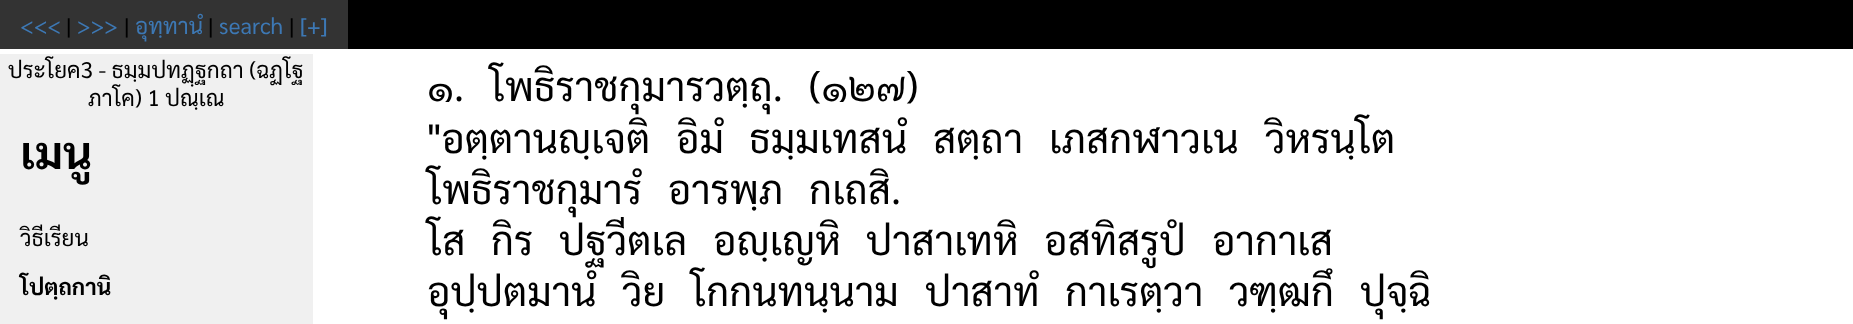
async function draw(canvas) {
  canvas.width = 1853
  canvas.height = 324
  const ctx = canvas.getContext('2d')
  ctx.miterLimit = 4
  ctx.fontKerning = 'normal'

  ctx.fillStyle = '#fff'
  ctx.fillRect(0, 0, 1853, 324)
  ctx.fillStyle = '#000'
  ctx.fillRect(348, 0, 1505, 49)
  ctx.fillStyle = '#333'
  ctx.fillRect(0, 0, 348, 49)
  ctx.font = '22.5px Sarabun'
  ctx.fillStyle = '#3d78b4'
  ctx.fillText('<<<', 20, 34)
  ctx.fillStyle = '#000'
  ctx.fillText('|', 66, 34)
  ctx.fillStyle = '#3d78b4'
  ctx.fillText('>>>', 77, 34)
  ctx.fillStyle = '#000'
  ctx.fillText('|', 124, 34)
  ctx.fillStyle = '#3d78b4'
  ctx.fillText('อุทฺทานํ', 135, 34)
  ctx.fillStyle = '#000'
  ctx.fillText('|', 208, 34)
  ctx.fillStyle = '#3d78b4'
  ctx.fillText('search', 219, 34)
  ctx.fillStyle = '#000'
  ctx.fillText('|', 289, 34)
  ctx.fillStyle = '#3d78b4'
  ctx.fillText('[+]', 300, 34)
  ctx.fillStyle = '#f0f0f0'
  ctx.fillRect(0, 54, 313, 270)
  ctx.fillStyle = '#000'
  ctx.fillText('ประโยค3 - ธมฺมปทฏฺฐกถา (ฉฏโฐ', 8, 78)
  ctx.fillText('ภาโค) 1 ปณฺเณ', 88, 106)
  ctx.font = 'bold 45px Sarabun'
  ctx.fillText('เมนู', 20, 169)
  ctx.font = '22.5px Sarabun'
  ctx.fillText('วิธีเรียน', 20, 246)
  ctx.font = 'bold 22.5px Sarabun'
  ctx.fillText('โปตฺถกานิ', 20, 295)
  ctx.wordSpacing = '16px'
  ctx.font = '40px Sarabun'
  ctx.fillText('๑. โพธิราชกุมารวตฺถุ. (๑๒๗)', 427, 101)
  ctx.wordSpacing = '0px'
  ctx.fillText('"อตฺตานญฺเจติ', 427, 153)
  ctx.fillText('อิมํ', 676, 153)
  ctx.fillText('ธมฺมเทสนํ', 749, 153)
  ctx.fillText('สตฺถา', 933, 153)
  ctx.fillText('เภสกฬาวเน', 1049, 153)
  ctx.fillText('วิหรนฺโต', 1265, 153)
  ctx.wordSpacing = '16px'
  ctx.fillText('โพธิราชกุมารํ อารพฺภ กเถสิ.', 427, 204)
  ctx.wordSpacing = '0px'
  ctx.fillText('โส', 427, 255)
  ctx.fillText('กิร', 491, 255)
  ctx.fillText('ปฐวีตเล', 559, 255)
  ctx.fillText('อญฺเญหิ', 713, 255)
  ctx.fillText('ปาสาเทหิ', 866, 255)
  ctx.fillText('อสทิสรูปํ', 1044, 255)
  ctx.fillText('อากาเส', 1212, 255)
  ctx.fillText('อุปฺปตมานํ', 427, 306)
  ctx.fillText('วิย', 622, 306)
  ctx.fillText('โกกนทนฺนาม', 691, 306)
  ctx.fillText('ปาสาทํ', 925, 306)
  ctx.fillText('กาเรตฺวา', 1065, 306)
  ctx.fillText('วฑฺฒกึ', 1229, 306)
  ctx.fillText('ปุจฺฉิ', 1360, 306)
}

draw(document.querySelector('canvas'))
